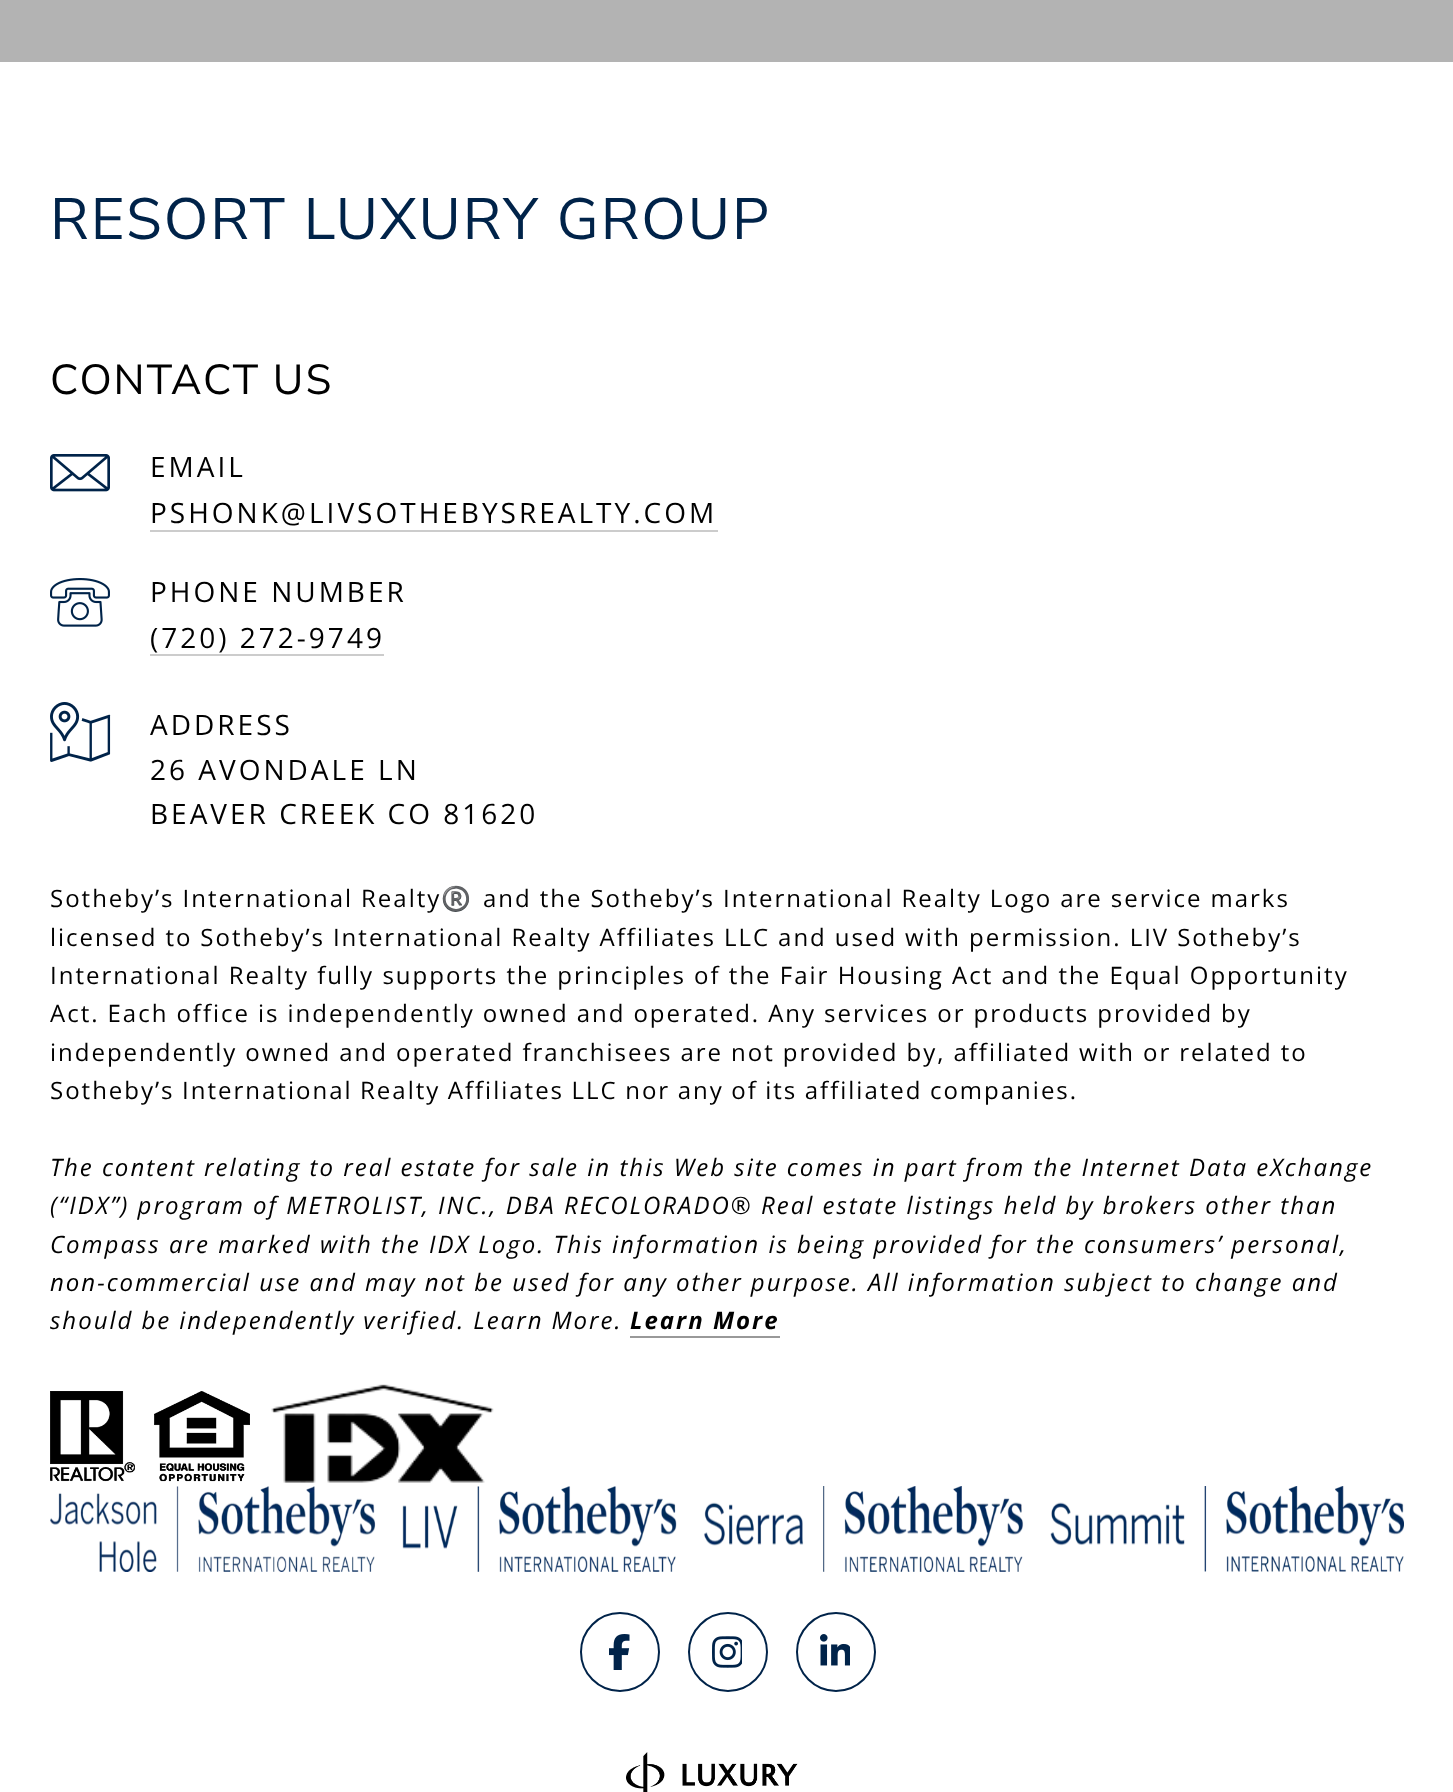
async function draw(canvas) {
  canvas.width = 1453
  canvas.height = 1792
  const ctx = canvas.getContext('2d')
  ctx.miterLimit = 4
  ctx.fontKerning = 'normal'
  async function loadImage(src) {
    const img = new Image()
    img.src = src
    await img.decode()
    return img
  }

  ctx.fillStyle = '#fff'
  ctx.fillRect(0, 0, 1453, 1792)
  ctx.fillStyle = '#b3b3b3'
  ctx.fillRect(0, 0, 1453, 62)
  ctx.letterSpacing = '2px'
  ctx.font = '58px Nunito Sans'
  ctx.fillStyle = '#002349'
  ctx.fillText('RESORT LUXURY GROUP', 50, 239)
  ctx.font = '42px Nunito Sans'
  ctx.fillStyle = '#000'
  ctx.fillText('CONTACT US', 50, 394)
  ctx.drawImage(await loadImage('image0.png'), 50, 454, 60, 38)
  ctx.letterSpacing = '3px'
  ctx.font = '28px Open Sans'
  ctx.fillText('EMAIL', 150, 477)
  ctx.fillText('PSHONK@LIVSOTHEBYSREALTY.COM', 150, 523)
  ctx.fillStyle = '#ccc'
  ctx.fillRect(150, 530, 568, 2)
  ctx.drawImage(await loadImage('image1.png'), 50, 578, 60, 49)
  ctx.fillStyle = '#000'
  ctx.fillText('PHONE NUMBER', 150, 602)
  ctx.fillText('(720) 272-9749', 150, 648)
  ctx.fillStyle = '#ccc'
  ctx.fillRect(150, 654, 234, 2)
  ctx.drawImage(await loadImage('image2.png'), 50, 702, 61, 60)
  ctx.fillStyle = '#000'
  ctx.fillText('ADDRESS', 150, 735)
  ctx.fillText('26 AVONDALE LN', 150, 780)
  ctx.fillText('BEAVER CREEK CO 81620', 150, 824)
  ctx.letterSpacing = '2px'
  ctx.wordSpacing = '-0.25px'
  ctx.font = '24px Open Sans'
  ctx.fillText('Sotheby’s International Realty', 50, 907)
  ctx.wordSpacing = '0px'
  ctx.font = '24px Noto Color Emoji'
  ctx.fillText('®️', 441, 907)
  ctx.wordSpacing = '-0.25px'
  ctx.font = '24px Open Sans'
  ctx.fillText('and the Sotheby’s International Realty Logo are service marks', 483, 907)
  ctx.fillText('licensed to Sotheby’s International Realty Affiliates LLC and used with permission. LIV Sotheby’s', 50, 946)
  ctx.wordSpacing = '0px'
  ctx.fillText('International Realty fully supports the principles of the Fair Housing Act and the Equal Opportunity', 50, 984)
  ctx.wordSpacing = '-0.25px'
  ctx.fillText('Act. Each office is independently owned and operated. Any services or products provided by', 50, 1022)
  ctx.fillText('independently owned and operated franchisees are not provided by, affiliated with or related to', 50, 1061)
  ctx.wordSpacing = '-0.75px'
  ctx.fillText('Sotheby’s International Realty Affiliates LLC nor any of its affiliated companies.', 50, 1099)
  ctx.wordSpacing = '0px'
  ctx.font = 'italic 24px Open Sans'
  ctx.fillText('The content relating to real estate for sale in this Web site comes in part from the Internet Data eXchange', 50, 1176)
  ctx.fillText('(“IDX”) program of METROLIST, INC., DBA RECOLORADO® Real estate listings held by brokers other than', 50, 1214)
  ctx.fillText('Compass are marked with the IDX Logo. This information is being provided for the consumers’ personal,', 50, 1253)
  ctx.fillText('non-commercial use and may not be used for any other purpose. All information subject to change and', 50, 1291)
  ctx.wordSpacing = '-0.25px'
  ctx.fillText('should be independently verified. Learn More.', 50, 1329)
  ctx.wordSpacing = '0px'
  ctx.font = 'italic bold 24px Open Sans'
  ctx.fillText('Learn More', 630, 1329)
  ctx.fillStyle = '#999'
  ctx.fillRect(630, 1336, 150, 2)
  ctx.drawImage(await loadImage('image3.png'), 50, 1391, 200, 91)
  ctx.drawImage(await loadImage('image4.png'), 271, 1384, 223, 99)
  ctx.drawImage(await loadImage('image5.png'), 50, 1486, 1354, 86)
  ctx.beginPath()
  ctx.arc(620, 1652, 39, 0, 2 * Math.PI)
  ctx.strokeStyle = '#002349'
  ctx.lineWidth = 2
  ctx.stroke()
  ctx.drawImage(await loadImage('image6.png'), 609, 1634, 21, 36)
  ctx.beginPath()
  ctx.arc(728, 1652, 39, 0, 2 * Math.PI)
  ctx.stroke()
  ctx.drawImage(await loadImage('image7.png'), 712, 1636, 30, 32)
  ctx.beginPath()
  ctx.arc(836, 1652, 39, 0, 2 * Math.PI)
  ctx.stroke()
  ctx.drawImage(await loadImage('image8.png'), 820, 1634, 30, 32)
  ctx.drawImage(await loadImage('image9.png'), 626, 1752, 172, 40)
}

draw(document.querySelector('canvas'))
